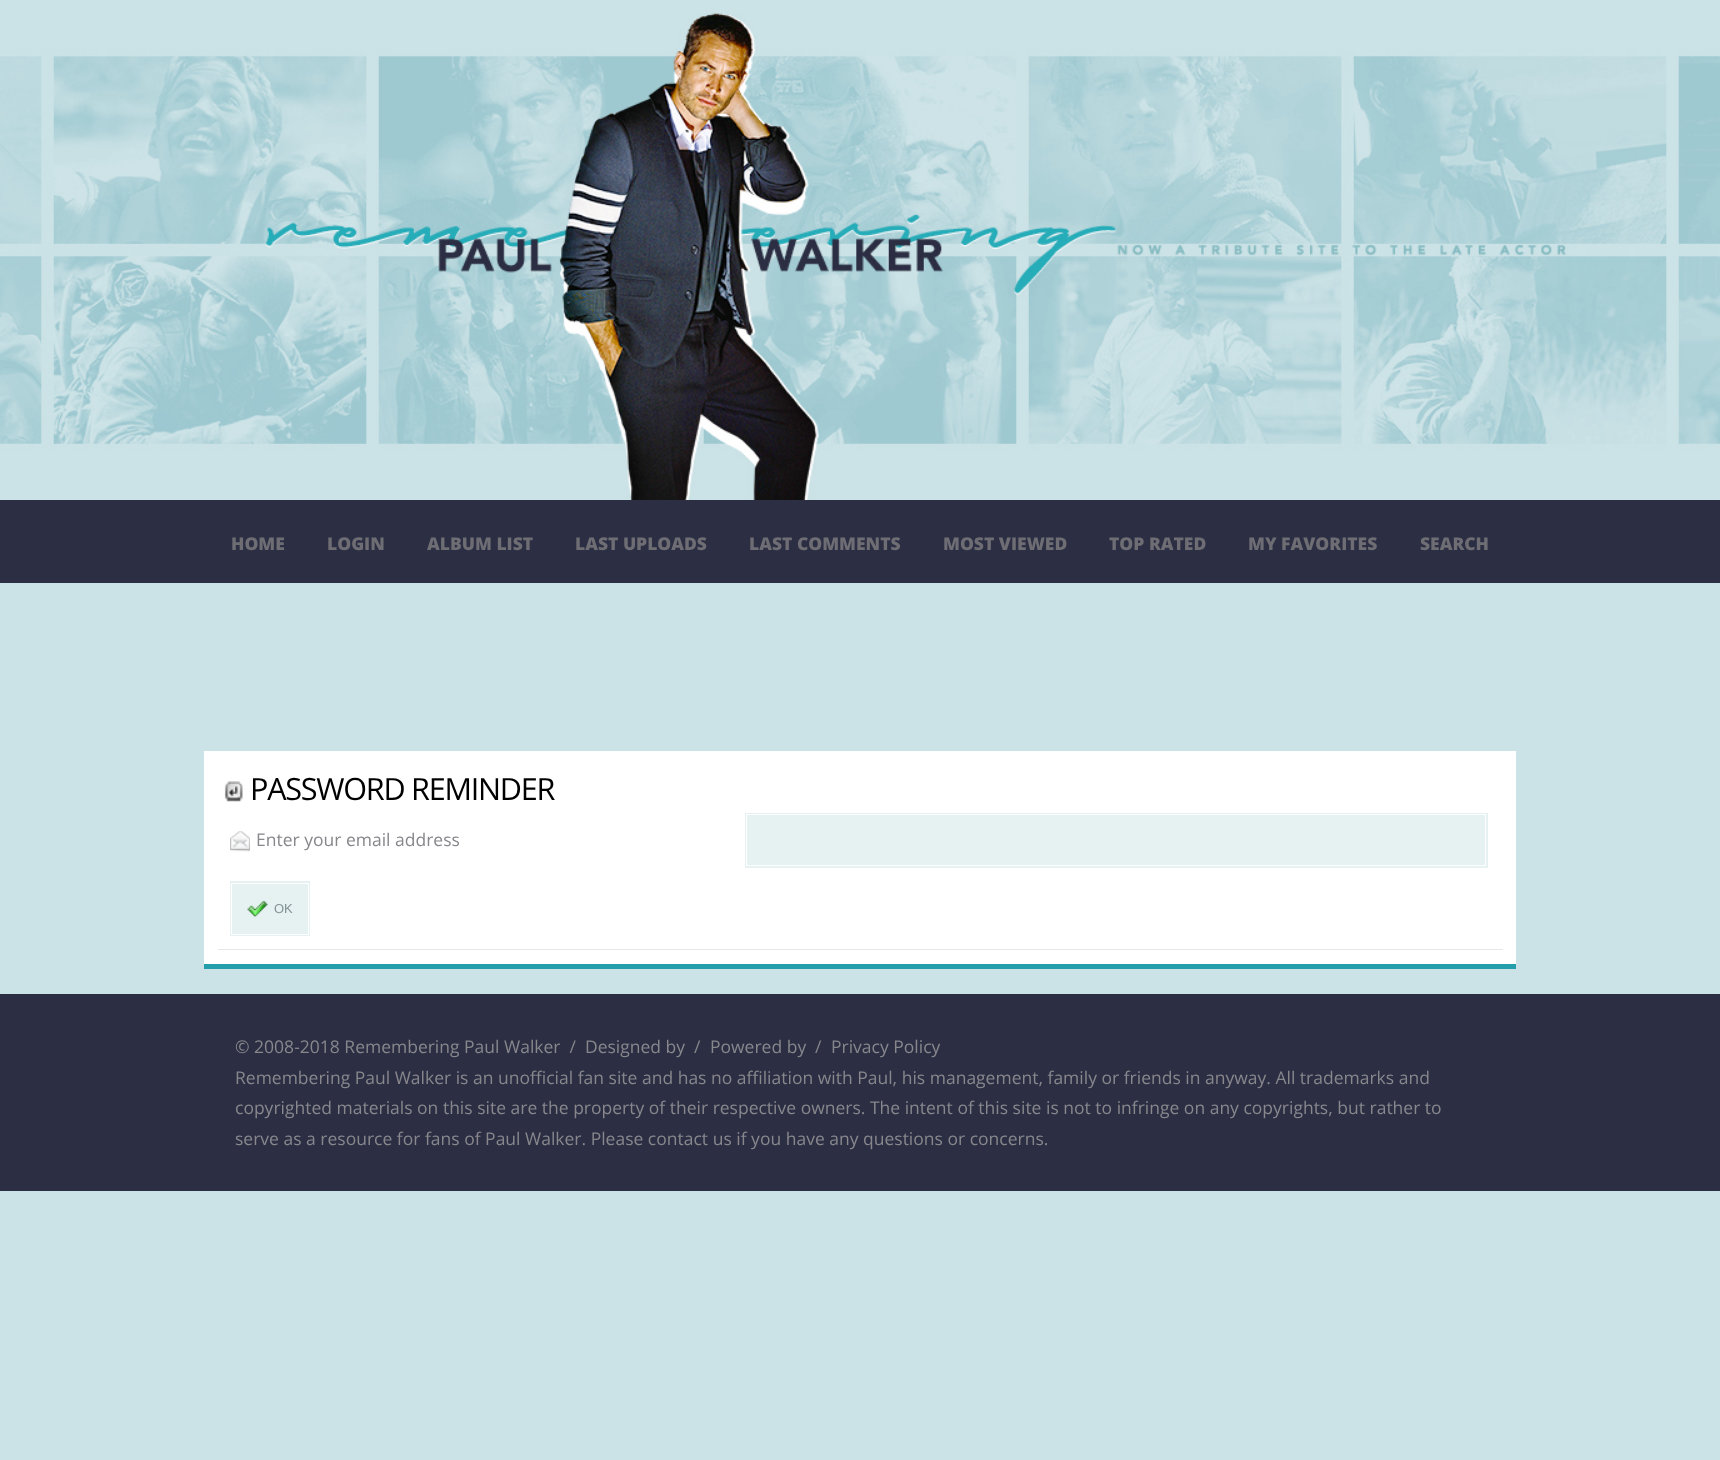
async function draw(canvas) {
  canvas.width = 1720
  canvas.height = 1460
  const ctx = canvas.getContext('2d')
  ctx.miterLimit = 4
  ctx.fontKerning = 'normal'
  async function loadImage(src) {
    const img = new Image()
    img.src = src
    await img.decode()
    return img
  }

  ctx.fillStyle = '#cbe3e7'
  ctx.fillRect(0, 0, 1720, 1460)
  ctx.drawImage(await loadImage('image0.png'), 0, 13, 1720, 487)
  ctx.fillStyle = '#2c2e44'
  ctx.fillRect(0, 500, 1720, 83)
  ctx.font = '800 17.5px Open Sans'
  ctx.fillStyle = '#6d6d73'
  ctx.fillText('HOME', 231, 550)
  ctx.fillText('LOGIN', 327, 550)
  ctx.fillText('ALBUM LIST', 427, 550)
  ctx.fillText('LAST UPLOADS', 575, 550)
  ctx.fillText('LAST COMMENTS', 749, 550)
  ctx.fillText('MOST VIEWED', 943, 550)
  ctx.fillText('TOP RATED', 1109, 550)
  ctx.fillText('MY FAVORITES', 1248, 550)
  ctx.fillText('SEARCH', 1420, 550)
  ctx.fillStyle = '#fff'
  ctx.fillRect(204, 751, 1312, 213)
  ctx.fillStyle = '#249eab'
  ctx.fillRect(204, 964, 1312, 5)
  ctx.drawImage(await loadImage('image1.png'), 224, 781, 19, 21)
  ctx.letterSpacing = '-1.25px'
  ctx.font = '30.6px Open Sans'
  ctx.fillStyle = '#000'
  ctx.fillText('PASSWORD REMINDER', 250, 800)
  ctx.drawImage(await loadImage('image2.png'), 230, 831, 20, 21)
  ctx.letterSpacing = '0px'
  ctx.font = '17.5px Open Sans'
  ctx.fillStyle = '#87878c'
  ctx.fillText('Enter your email address', 256, 846)
  ctx.fillStyle = '#e6f1f2'
  ctx.fillRect(745, 813, 743, 55)
  ctx.strokeStyle = '#fff'
  ctx.strokeRect(746.5, 814.5, 739, 51)
  ctx.fillStyle = '#e7e7e7'
  ctx.fillRect(218, 949, 1285, 1)
  ctx.fillStyle = '#e6f1f2'
  ctx.fillRect(230, 881, 80, 55)
  ctx.strokeRect(231.5, 883.5, 77, 51)
  ctx.drawImage(await loadImage('image3.png'), 247, 901, 21, 16)
  ctx.font = '13px Liberation Sans'
  ctx.fillStyle = '#829192'
  ctx.fillText('OK', 274, 913)
  ctx.fillStyle = '#2c2e44'
  ctx.fillRect(0, 994, 1720, 197)
  ctx.font = '17.5px Open Sans'
  ctx.fillStyle = '#87878c'
  ctx.fillText('© 2008-2018 Remembering Paul Walker  /', 235, 1053)
  ctx.fillText('Designed by', 585, 1053)
  ctx.fillText('/', 694, 1053)
  ctx.fillText('Powered by', 710, 1053)
  ctx.fillText('/', 815, 1053)
  ctx.fillText('Privacy Policy', 831, 1053)
  ctx.fillText('Remembering Paul Walker is an unofficial fan site and has no affiliation with Paul, his management, family or friends in anyway. All trademarks and', 235, 1084)
  ctx.fillText('copyrighted materials on this site are the property of their respective owners. The intent of this site is not to infringe on any copyrights, but rather to', 235, 1114)
  ctx.fillText('serve as a resource for fans of Paul Walker. Please contact us if you have any questions or concerns.', 235, 1145)
}

draw(document.querySelector('canvas'))
